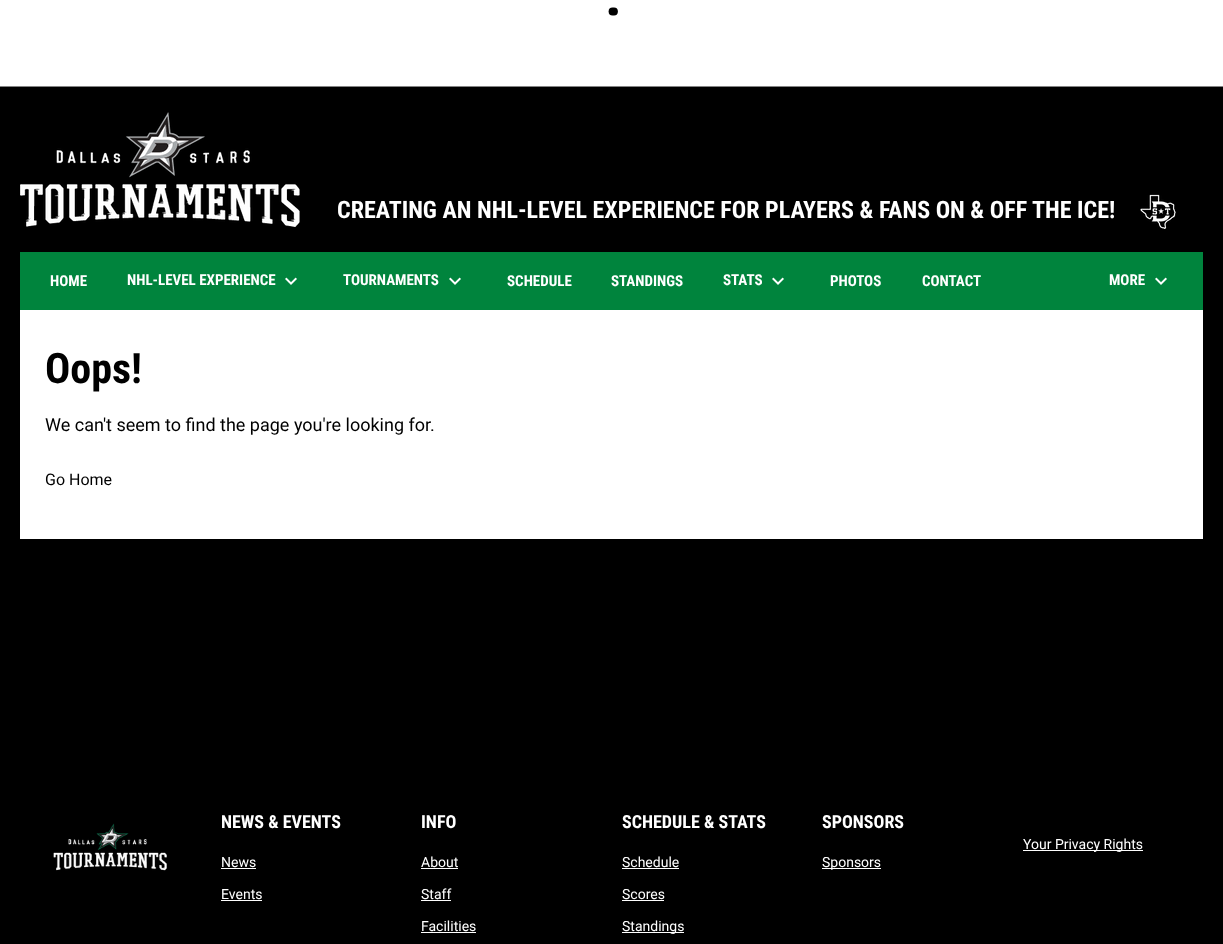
async function draw(canvas) {
  canvas.width = 1223
  canvas.height = 944
  const ctx = canvas.getContext('2d')
  ctx.miterLimit = 4
  ctx.fontKerning = 'normal'
  async function loadImage(src) {
    const img = new Image()
    img.src = src
    await img.decode()
    return img
  }

  ctx.fillStyle = '#000'
  ctx.fillRect(0, 0, 1223, 944)
  ctx.fillStyle = '#fff'
  ctx.fillRect(0, 0, 1223, 86)
  ctx.fillStyle = '#838383'
  ctx.fillRect(0, 86, 1223, 1)
  ctx.beginPath()
  ctx.moveTo(612.5, 11.5)
  ctx.lineTo(614, 11.5)
  ctx.strokeStyle = '#000'
  ctx.lineWidth = 7.8
  ctx.lineCap = 'round'
  ctx.stroke()
  ctx.drawImage(await loadImage('image0.png'), 20, 112, 280, 115)
  ctx.font = 'bold 24px Roboto Condensed'
  ctx.fillStyle = '#fff'
  ctx.fillText('CREATING AN NHL-LEVEL EXPERIENCE FOR PLAYERS & FANS ON & OFF THE ICE!', 337, 218)
  ctx.drawImage(await loadImage('image1.png'), 1140, 194, 36, 35)
  ctx.fillStyle = '#00843d'
  ctx.fillRect(20, 252, 1183, 58)
  ctx.font = 'bold 15px Roboto Condensed'
  ctx.fillStyle = '#fff'
  ctx.fillText('HOME', 50, 286)
  ctx.fillText('NHL-LEVEL EXPERIENCE', 127, 285)
  ctx.drawImage(await loadImage('image2.png'), 285, 277, 12, 8)
  ctx.fillText('TOURNAMENTS', 343, 285)
  ctx.drawImage(await loadImage('image2.png'), 449, 277, 12, 8)
  ctx.fillText('SCHEDULE', 507, 286)
  ctx.fillText('STANDINGS', 611, 286)
  ctx.fillText('STATS', 723, 285)
  ctx.drawImage(await loadImage('image2.png'), 772, 277, 12, 8)
  ctx.fillText('PHOTOS', 830, 286)
  ctx.fillText('CONTACT', 922, 286)
  ctx.fillText('MORE', 1109, 285)
  ctx.drawImage(await loadImage('image2.png'), 1155, 277, 12, 8)
  ctx.fillRect(20, 310, 1183, 229)
  ctx.font = 'bold 42px Roboto Condensed'
  ctx.fillStyle = '#000'
  ctx.fillText('Oops!', 45, 383)
  ctx.font = '18px Roboto'
  ctx.fillText('We can\'t seem to find the page you\'re looking for.', 45, 431)
  ctx.font = '16px Roboto'
  ctx.fillText('Go Home', 45, 485)
  ctx.drawImage(await loadImage('image3.png'), 53, 823, 114, 48)
  ctx.font = 'bold 18px Roboto Condensed'
  ctx.fillStyle = '#fff'
  ctx.fillText('NEWS & EVENTS', 221, 828)
  ctx.font = '14px Roboto'
  ctx.fillText('News', 221, 867)
  ctx.fillRect(221, 868, 35, 1)
  ctx.fillText('Events', 221, 899)
  ctx.fillRect(221, 900, 41, 1)
  ctx.font = 'bold 18px Roboto Condensed'
  ctx.fillText('INFO', 421, 828)
  ctx.font = '14px Roboto'
  ctx.fillText('About', 421, 867)
  ctx.fillRect(421, 868, 37, 1)
  ctx.fillText('Staff', 421, 899)
  ctx.fillRect(421, 900, 30, 1)
  ctx.fillText('Facilities', 421, 931)
  ctx.fillRect(421, 932, 55, 1)
  ctx.font = 'bold 18px Roboto Condensed'
  ctx.fillText('SCHEDULE & STATS', 622, 828)
  ctx.font = '14px Roboto'
  ctx.fillText('Schedule', 622, 867)
  ctx.fillRect(622, 868, 57, 1)
  ctx.fillText('Scores', 622, 899)
  ctx.fillRect(622, 900, 42, 1)
  ctx.fillRect(622, 932, 62, 1)
  ctx.fillText('Standings', 622, 931)
  ctx.font = 'bold 18px Roboto Condensed'
  ctx.fillText('SPONSORS', 822, 828)
  ctx.fillRect(822, 868, 59, 1)
  ctx.font = '14px Roboto'
  ctx.fillText('Sponsors', 822, 867)
  ctx.fillRect(1023, 850, 120, 1)
  ctx.fillText('Your Privacy Rights', 1023, 849)
}

draw(document.querySelector('canvas'))
